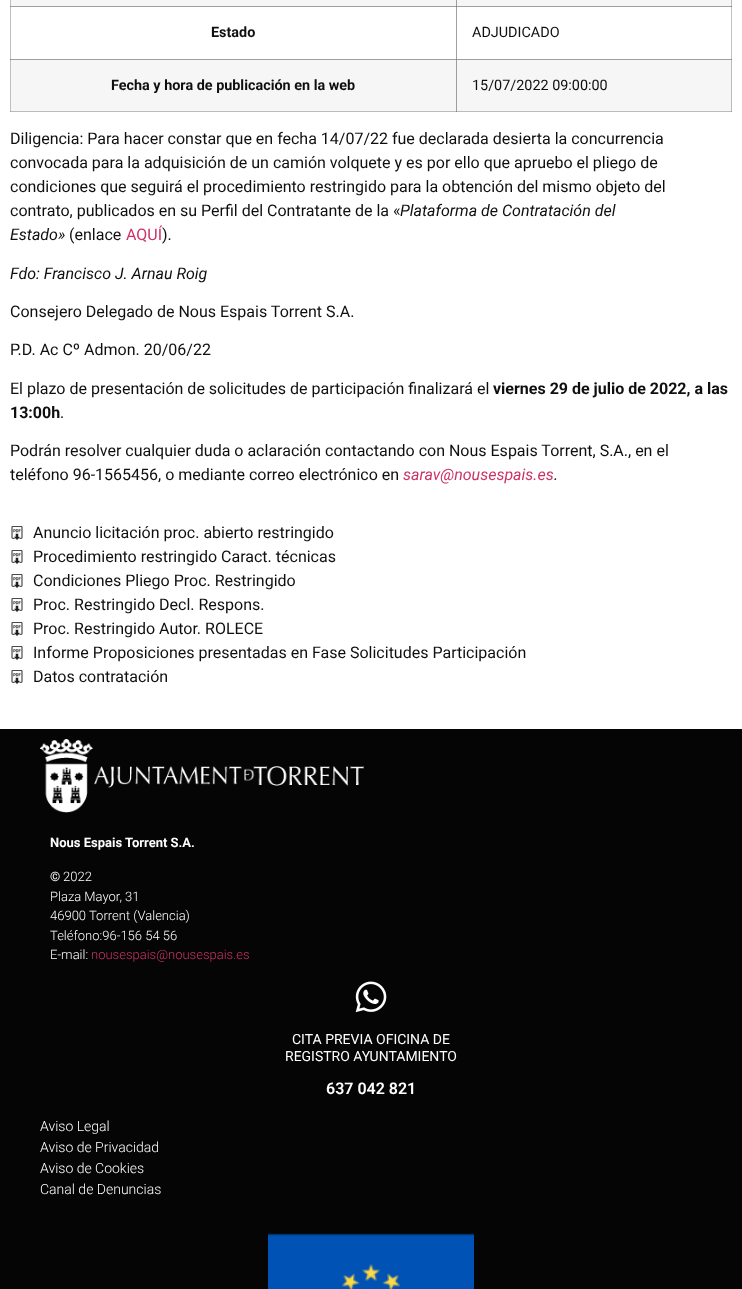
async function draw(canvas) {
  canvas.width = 742
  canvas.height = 1289
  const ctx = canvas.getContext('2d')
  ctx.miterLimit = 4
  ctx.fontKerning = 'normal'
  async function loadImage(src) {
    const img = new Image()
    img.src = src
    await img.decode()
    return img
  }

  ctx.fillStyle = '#fff'
  ctx.fillRect(0, 0, 742, 1289)
  ctx.fillStyle = '#c0c0c0'
  ctx.fillRect(10, 0, 1, 112)
  ctx.fillStyle = '#a0a0a0'
  ctx.fillRect(10, 6, 447, 1)
  ctx.fillStyle = '#888'
  ctx.fillRect(10, 6, 1, 1)
  ctx.fillStyle = '#a0a0a0'
  ctx.fillRect(456, 6, 1, 54)
  ctx.fillStyle = '#c0c0c0'
  ctx.fillRect(731, 6, 1, 54)
  ctx.fillStyle = '#a0a0a0'
  ctx.fillRect(10, 111, 1, 1)
  ctx.fillStyle = '#888'
  ctx.fillRect(10, 59, 1, 1)
  ctx.fillStyle = '#f6f6f6'
  ctx.fillRect(11, 0, 721, 6)
  ctx.fillStyle = '#9e9e9e'
  ctx.fillRect(456, 0, 1, 6)
  ctx.fillStyle = '#bbb'
  ctx.fillRect(731, 0, 1, 6)
  ctx.font = 'bold 14.4px Roboto'
  ctx.fillStyle = '#0f0f0f'
  ctx.fillText('Estado', 211, 37)
  ctx.fillStyle = '#a0a0a0'
  ctx.fillRect(456, 6, 276, 1)
  ctx.fillStyle = '#818181'
  ctx.fillRect(456, 6, 1, 1)
  ctx.fillStyle = '#888'
  ctx.fillRect(731, 6, 1, 1)
  ctx.font = '14.4px Roboto'
  ctx.fillStyle = '#0f0f0f'
  ctx.fillText('ADJUDICADO', 472, 37)
  ctx.fillStyle = '#f6f6f6'
  ctx.fillRect(11, 60, 445, 51)
  ctx.fillStyle = '#bbb'
  ctx.fillRect(11, 111, 721, 1)
  ctx.fillStyle = '#9e9e9e'
  ctx.fillRect(11, 59, 446, 1)
  ctx.fillRect(456, 59, 1, 53)
  ctx.fillStyle = '#888'
  ctx.fillRect(456, 111, 1, 1)
  ctx.font = 'bold 14.4px Roboto'
  ctx.fillStyle = '#0f0f0f'
  ctx.fillText('Fecha y hora de publicación en la web', 111, 90)
  ctx.fillStyle = '#f6f6f6'
  ctx.fillRect(457, 60, 274, 51)
  ctx.fillStyle = '#bbb'
  ctx.fillRect(731, 59, 1, 53)
  ctx.fillStyle = '#9e9e9e'
  ctx.fillRect(731, 111, 1, 1)
  ctx.fillRect(456, 59, 276, 1)
  ctx.fillStyle = '#818181'
  ctx.fillRect(456, 59, 1, 1)
  ctx.fillStyle = '#888'
  ctx.fillRect(731, 59, 1, 1)
  ctx.font = '14.4px Roboto'
  ctx.fillStyle = '#0f0f0f'
  ctx.fillText('15/07/2022 09:00:00', 472, 90)
  ctx.font = '16px Roboto'
  ctx.fillText('Diligencia: Para hacer constar que en fecha 14/07/22 fue declarada desierta la concurrencia', 10, 144)
  ctx.fillText('convocada para la adquisición de un camión volquete y es por ello que apruebo el pliego de', 10, 168)
  ctx.fillText('condiciones que seguirá el procedimiento restringido para la obtención del mismo objeto del', 10, 192)
  ctx.fillText('contrato, publicados en su Perfil del Contratante de la «', 10, 216)
  ctx.font = 'italic 16px Roboto'
  ctx.fillText('Plataforma de Contratación del', 400, 216)
  ctx.fillText('Estado»', 10, 240)
  ctx.font = '16px Roboto'
  ctx.fillText('(enlace', 69, 240)
  ctx.fillStyle = '#c36'
  ctx.fillText('AQUÍ', 126, 240)
  ctx.fillStyle = '#0f0f0f'
  ctx.fillText(').', 162, 240)
  ctx.font = 'italic 16px Roboto'
  ctx.fillText('Fdo: Francisco J. Arnau Roig', 10, 279)
  ctx.font = '16px Roboto'
  ctx.fillText('Consejero Delegado de Nous Espais Torrent S.A.', 10, 317)
  ctx.fillText('P.D. Ac Cº Admon. 20/06/22', 10, 355)
  ctx.fillText('El plazo de presentación de solicitudes de participación finalizará el', 10, 394)
  ctx.font = 'bold 16px Roboto'
  ctx.fillText('viernes 29 de julio de 2022, a las', 493, 394)
  ctx.fillText('13:00h', 10, 418)
  ctx.font = '16px Roboto'
  ctx.fillText('.', 60, 418)
  ctx.fillText('Podrán resolver cualquier duda o aclaración contactando con Nous Espais Torrent, S.A., en el', 10, 456)
  ctx.fillText('teléfono 96-1565456, o mediante correo electrónico en', 10, 480)
  ctx.font = 'italic 16px Roboto'
  ctx.fillStyle = '#c36'
  ctx.fillText('sarav@nousespais.es', 403, 480)
  ctx.fillStyle = '#0f0f0f'
  ctx.fillText('.', 554, 480)
  ctx.drawImage(await loadImage('image0.png'), 11, 526, 12, 14)
  ctx.font = '16px Roboto'
  ctx.fillText('Anuncio licitación proc. abierto restringido', 33, 538)
  ctx.drawImage(await loadImage('image0.png'), 11, 550, 12, 14)
  ctx.fillText('Procedimiento restringido Caract. técnicas', 33, 562)
  ctx.drawImage(await loadImage('image0.png'), 11, 574, 12, 14)
  ctx.fillText('Condiciones Pliego Proc. Restringido', 33, 586)
  ctx.drawImage(await loadImage('image0.png'), 11, 598, 12, 14)
  ctx.fillText('Proc. Restringido Decl. Respons.', 33, 610)
  ctx.drawImage(await loadImage('image0.png'), 11, 622, 12, 14)
  ctx.fillText('Proc. Restringido Autor. ROLECE', 33, 634)
  ctx.drawImage(await loadImage('image0.png'), 11, 646, 12, 14)
  ctx.fillText('Informe Proposiciones presentadas en Fase Solicitudes Participación', 33, 658)
  ctx.drawImage(await loadImage('image0.png'), 11, 670, 12, 14)
  ctx.fillText('Datos contratación', 33, 682)
  ctx.fillStyle = '#050505'
  ctx.fillRect(0, 729, 742, 560)
  ctx.drawImage(await loadImage('image1.png'), 40, 739, 324, 74)
  ctx.font = 'bold 13px Roboto'
  ctx.fillStyle = '#fff'
  ctx.fillText('Nous Espais Torrent S.A.', 50, 847)
  ctx.font = '13px Roboto'
  ctx.fillText('©', 50, 881)
  ctx.font = '300 13px Roboto'
  ctx.fillText('2022', 63, 881)
  ctx.fillText('Plaza Mayor, 31', 50, 901)
  ctx.fillText('46900 Torrent (Valencia)', 50, 920)
  ctx.fillText('Teléfono:96-156 54 56', 50, 940)
  ctx.fillText('E-mail:', 50, 959)
  ctx.fillStyle = '#c36'
  ctx.fillText('nousespais@nousespais.es', 91, 959)
  ctx.drawImage(await loadImage('image2.png'), 355, 981, 32, 32)
  ctx.font = '14px Roboto'
  ctx.fillStyle = '#fff'
  ctx.fillText('CITA PREVIA OFICINA DE', 292, 1044)
  ctx.fillText('REGISTRO AYUNTAMIENTO', 285, 1061)
  ctx.font = '600 16px Roboto'
  ctx.fillText('637 042 821', 326, 1094)
  ctx.font = '300 14px Roboto'
  ctx.fillText('Aviso Legal', 40, 1131)
  ctx.fillText('Aviso de Privacidad', 40, 1152)
  ctx.fillText('Aviso de Cookies', 40, 1173)
  ctx.fillText('Canal de Denuncias', 40, 1194)
  ctx.drawImage(await loadImage('image3.png'), 268, 1233, 206, 56)
}

draw(document.querySelector('canvas'))
